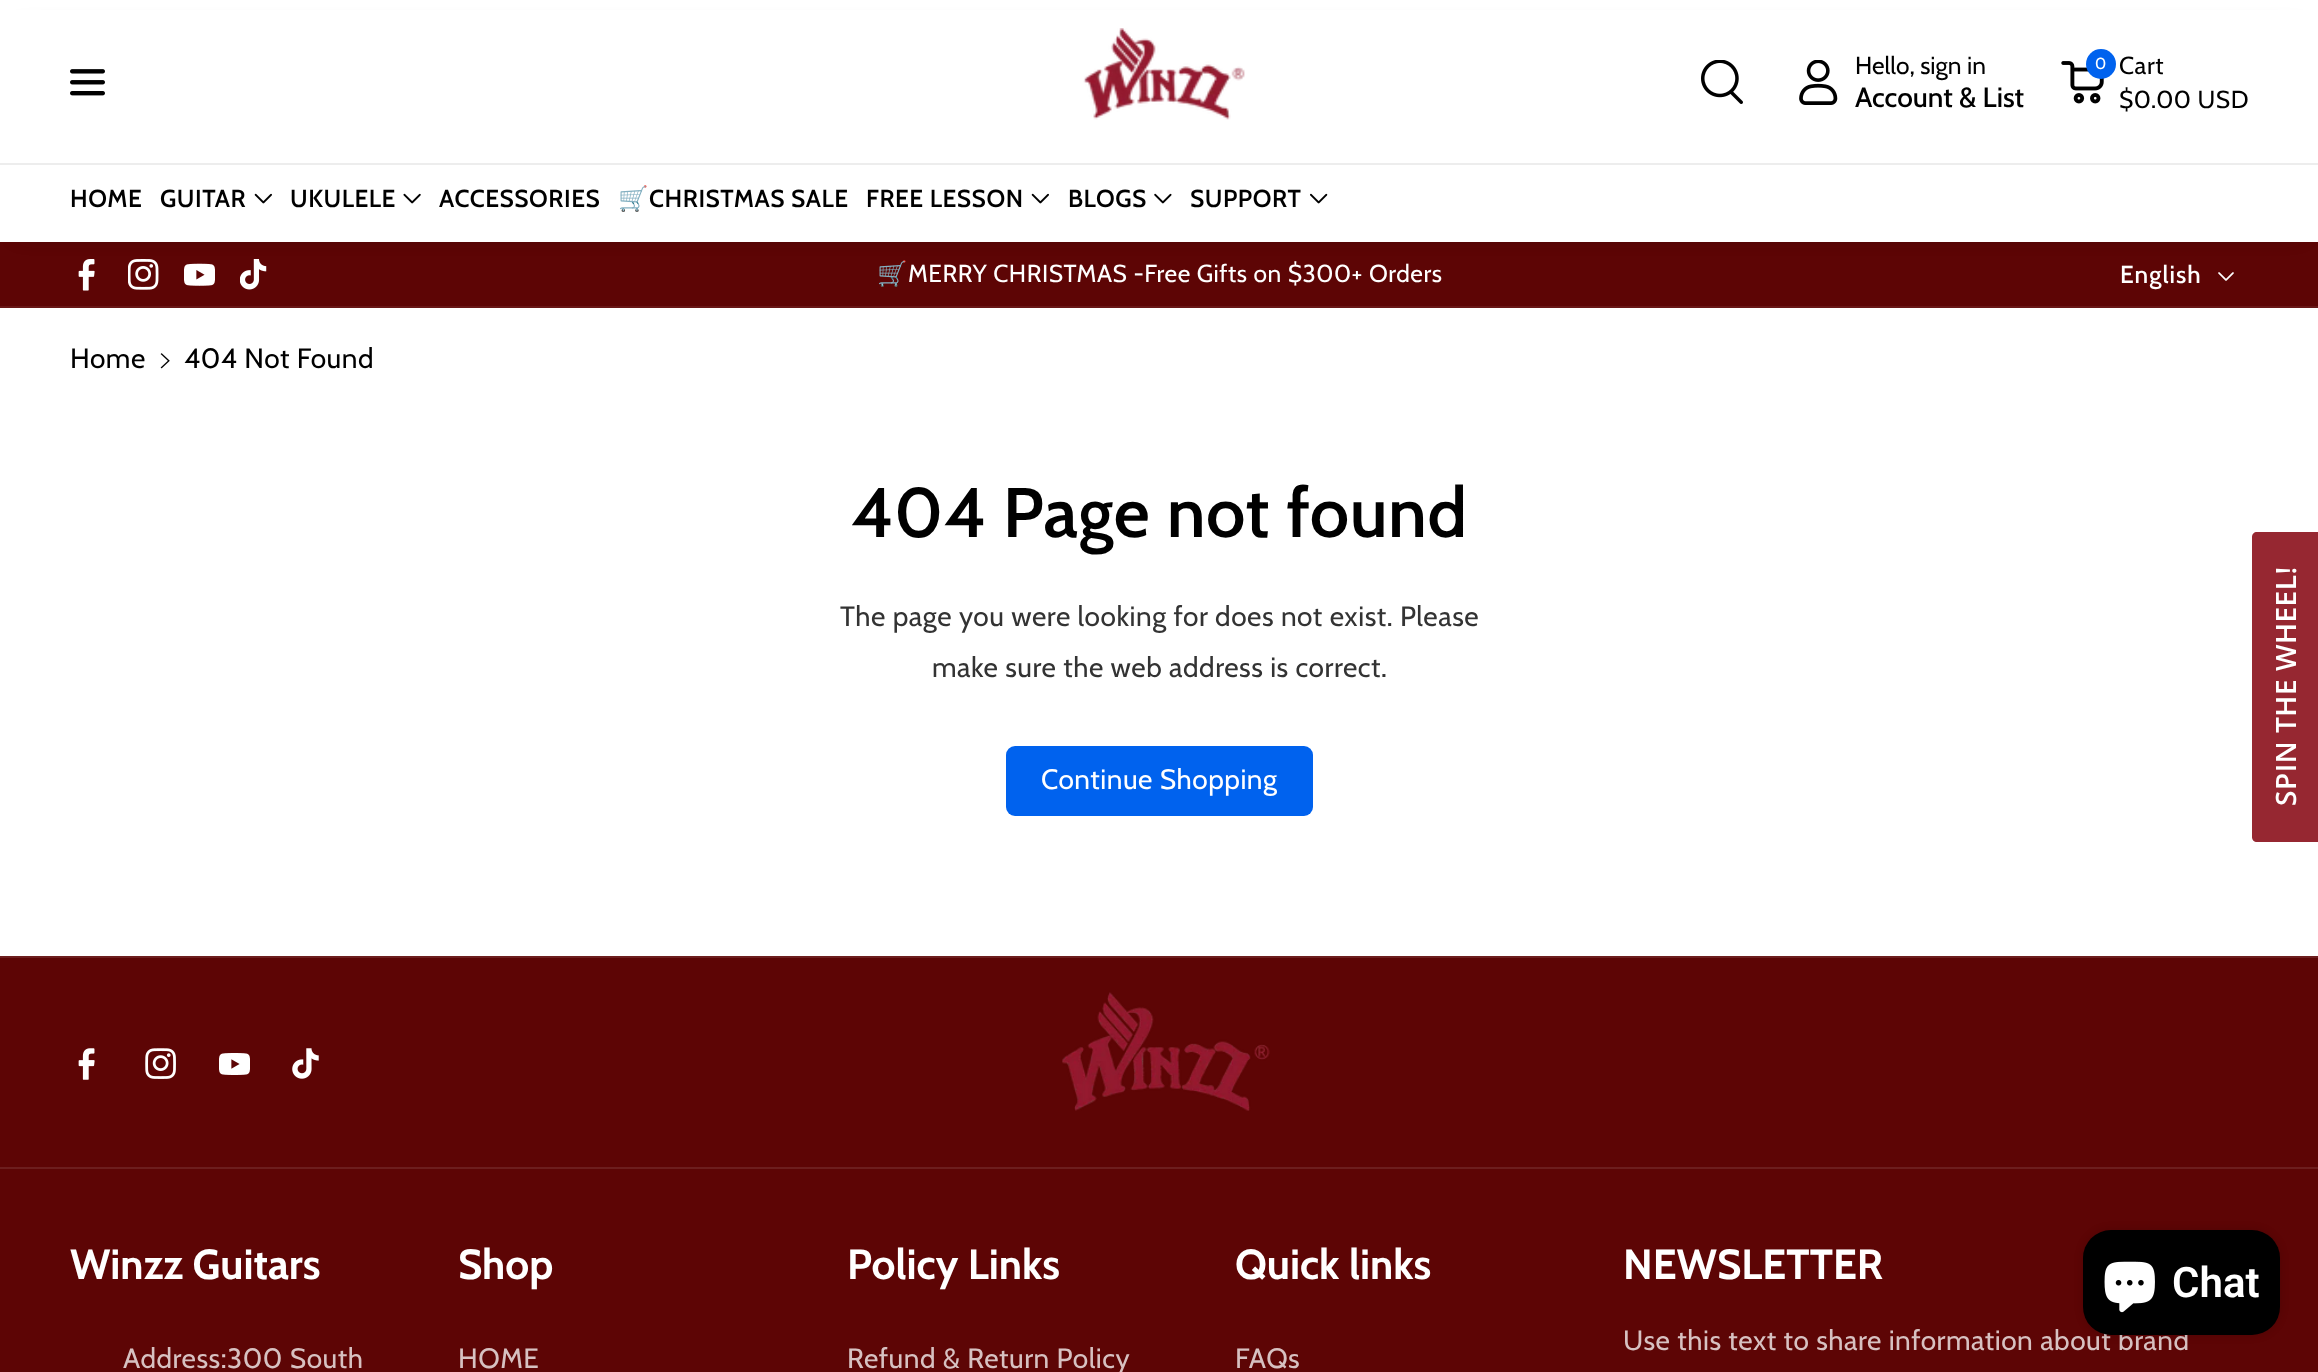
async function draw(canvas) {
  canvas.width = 2318
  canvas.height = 1372
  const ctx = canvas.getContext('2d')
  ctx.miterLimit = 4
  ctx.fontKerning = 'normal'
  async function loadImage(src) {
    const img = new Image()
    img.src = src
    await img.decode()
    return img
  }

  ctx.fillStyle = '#fff'
  ctx.fillRect(0, 0, 2318, 1372)
  ctx.fillStyle = '#5d0505'
  ctx.fillRect(0, 242, 2318, 64)
  ctx.drawImage(await loadImage('image9.png'), 78, 259, 17, 32)
  ctx.drawImage(await loadImage('image10.png'), 128, 259, 31, 31)
  ctx.drawImage(await loadImage('image11.png'), 184, 263, 31, 23)
  ctx.drawImage(await loadImage('image12.png'), 240, 259, 27, 31)
  ctx.fillStyle = '#12121299'
  ctx.filter = 'blur(10.5px)'
  ctx.beginPath()
  ctx.rect(21, 32, 2277, 199)
  ctx.fill()
  ctx.filter = 'none'
  ctx.fillStyle = '#fff'
  ctx.fillRect(0, 10, 2318, 232)
  ctx.drawImage(await loadImage('image0.png'), 70, 69, 35, 27)
  ctx.drawImage(await loadImage('image1.png'), 1083, 28, 162, 92)
  ctx.drawImage(await loadImage('image2.png'), 1701, 60, 42, 44)
  ctx.drawImage(await loadImage('image3.png'), 1799, 60, 39, 45)
  ctx.font = '24.5px Cabin'
  ctx.fillStyle = '#000'
  ctx.fillText('Hello, sign in', 1855, 74)
  ctx.font = '500 28px Cabin'
  ctx.fillText('Account & List', 1855, 107)
  ctx.drawImage(await loadImage('image4.png'), 2061, 61, 43, 43)
  ctx.fillStyle = '#0062ee'
  ctx.beginPath()
  ctx.arc(2101, 64, 15, 0, 2 * Math.PI)
  ctx.fill()
  ctx.letterSpacing = '0.53px'
  ctx.font = '16px Cabin'
  ctx.fillStyle = '#fff'
  ctx.fillText('0', 2095, 69)
  ctx.font = '24.5px Cabin'
  ctx.fillStyle = '#000'
  ctx.fillText('Cart', 2119, 74)
  ctx.fillText('$0.00 USD', 2119, 108)
  ctx.fillStyle = '#ededed'
  ctx.fillRect(0, 163, 2318, 2)
  ctx.font = '600 24.5px Cabin'
  ctx.fillStyle = '#000'
  ctx.fillText('HOME', 70, 207)
  ctx.fillText('GUITAR', 160, 207)
  ctx.drawImage(await loadImage('image5.png'), 254, 193, 18, 11)
  ctx.fillText('UKULELE', 290, 207)
  ctx.drawImage(await loadImage('image6.png'), 403, 193, 18, 11)
  ctx.fillText('ACCESSORIES', 439, 207)
  ctx.font = 'bold 24.5px Noto Color Emoji'
  ctx.fillText('🛒', 618, 207)
  ctx.font = '600 24.5px Cabin'
  ctx.fillText('CHRISTMAS SALE', 649, 207)
  ctx.fillText('FREE LESSON', 866, 207)
  ctx.drawImage(await loadImage('image5.png'), 1031, 193, 18, 11)
  ctx.fillText('BLOGS', 1068, 207)
  ctx.drawImage(await loadImage('image7.png'), 1154, 193, 18, 11)
  ctx.fillText('SUPPORT', 1190, 207)
  ctx.drawImage(await loadImage('image8.png'), 1310, 193, 18, 11)
  ctx.fillStyle = '#681717'
  ctx.fillRect(0, 306, 2318, 2)
  ctx.font = '24.5px Noto Color Emoji'
  ctx.fillStyle = '#fff'
  ctx.fillText('🛒', 877, 282)
  ctx.font = '24.5px Cabin'
  ctx.fillText('MERRY CHRISTMAS -Free Gifts on $300+ Orders', 908, 282)
  ctx.letterSpacing = '1px'
  ctx.font = '500 24.5px Cabin'
  ctx.fillText('English', 2120, 283)
  ctx.drawImage(await loadImage('image13.png'), 2218, 272, 16, 9)
  ctx.letterSpacing = '0.53px'
  ctx.font = '28px Cabin'
  ctx.fillStyle = '#000'
  ctx.fillText('Home', 70, 368)
  ctx.drawImage(await loadImage('image14.png'), 160, 353, 10, 16)
  ctx.fillText('404 Not Found', 184, 368)
  ctx.font = '600 70px Cabin'
  ctx.fillText('404 Page not found', 851, 537)
  ctx.font = '28px Cabin'
  ctx.fillStyle = '#333'
  ctx.fillText('The page you were looking for does not exist. Please', 840, 626)
  ctx.fillText('make sure the web address is correct.', 932, 677)
  ctx.fillStyle = '#0062ee'
  ctx.beginPath()
  ctx.roundRect(1006, 746, 307, 70, 9)
  ctx.fill()
  ctx.fillStyle = '#fff'
  ctx.fillText('Continue Shopping', 1041, 789)
  ctx.fillStyle = '#962731'
  ctx.beginPath()
  ctx.moveTo(2257, 532)
  ctx.lineTo(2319, 532)
  ctx.lineTo(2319, 842)
  ctx.lineTo(2257, 842)
  ctx.bezierCurveTo(2254, 842, 2252, 840, 2252, 837)
  ctx.lineTo(2252, 537)
  ctx.bezierCurveTo(2252, 534, 2254, 532, 2257, 532)
  ctx.closePath()
  ctx.fill()
  ctx.font = '600 28px Open Sans'
  ctx.fillStyle = '#fff'
  ctx.save()
  ctx.translate(2296, 806)
  ctx.rotate(-90 * Math.PI / 180)
  ctx.fillText('SPIN THE WHEEL!', 0, 0)
  ctx.restore()
  ctx.fillStyle = '#5d0505'
  ctx.fillRect(0, 958, 2318, 414)
  ctx.fillStyle = '#6d1e1e'
  ctx.fillRect(0, 956, 2318, 2)
  ctx.fillRect(0, 1167, 2318, 2)
  ctx.drawImage(await loadImage('image15.png'), 78, 1048, 17, 32)
  ctx.drawImage(await loadImage('image16.png'), 145, 1048, 31, 31)
  ctx.drawImage(await loadImage('image17.png'), 219, 1053, 31, 22)
  ctx.drawImage(await loadImage('image18.png'), 292, 1048, 27, 31)
  ctx.drawImage(await loadImage('image19.png'), 1062, 992, 208, 119)
  ctx.letterSpacing = '0px'
  ctx.font = 'bold 42px Cabin'
  ctx.fillStyle = '#fff'
  ctx.fillText('Winzz Guitars', 70, 1279)
  ctx.letterSpacing = '0.53px'
  ctx.font = '28px Cabin'
  ctx.fillStyle = '#d7c1c1'
  ctx.fillText('Address:300 South', 123, 1368)
  ctx.letterSpacing = '0px'
  ctx.font = 'bold 42px Cabin'
  ctx.fillStyle = '#fff'
  ctx.fillText('Shop', 458, 1279)
  ctx.letterSpacing = '0.53px'
  ctx.font = '28px Cabin'
  ctx.fillStyle = '#d7c1c1'
  ctx.fillText('HOME', 458, 1368)
  ctx.letterSpacing = '0px'
  ctx.font = 'bold 42px Cabin'
  ctx.fillStyle = '#fff'
  ctx.fillText('Policy Links', 847, 1279)
  ctx.letterSpacing = '0.53px'
  ctx.font = '28px Cabin'
  ctx.fillStyle = '#d7c1c1'
  ctx.fillText('Refund & Return Policy', 847, 1368)
  ctx.letterSpacing = '0px'
  ctx.font = 'bold 42px Cabin'
  ctx.fillStyle = '#fff'
  ctx.fillText('Quick links', 1235, 1279)
  ctx.letterSpacing = '0.53px'
  ctx.font = '28px Cabin'
  ctx.fillStyle = '#d7c1c1'
  ctx.fillText('FAQs', 1235, 1368)
  ctx.letterSpacing = '0px'
  ctx.font = 'bold 42px Cabin'
  ctx.fillStyle = '#fff'
  ctx.fillText('NEWSLETTER', 1623, 1279)
  ctx.letterSpacing = '0.53px'
  ctx.font = '28px Cabin'
  ctx.fillStyle = '#d7c1c1'
  ctx.fillText('Use this text to share information about brand', 1623, 1350)
  ctx.fillStyle = '#00000026'
  ctx.filter = 'blur(4.5px)'
  ctx.beginPath()
  ctx.roundRect(2083, 1230, 197, 105, 28)
  ctx.fill()
  ctx.filter = 'none'
  ctx.fillStyle = '#000'
  ctx.beginPath()
  ctx.roundRect(2083, 1230, 197, 105, 28)
  ctx.fill()
  ctx.drawImage(await loadImage('image20.png'), 2104, 1261, 51, 52)
  ctx.letterSpacing = '0px'
  ctx.font = '600 42px Roboto'
  ctx.fillStyle = '#fff'
  ctx.fillText('Chat', 2172, 1297)
}

draw(document.querySelector('canvas'))
